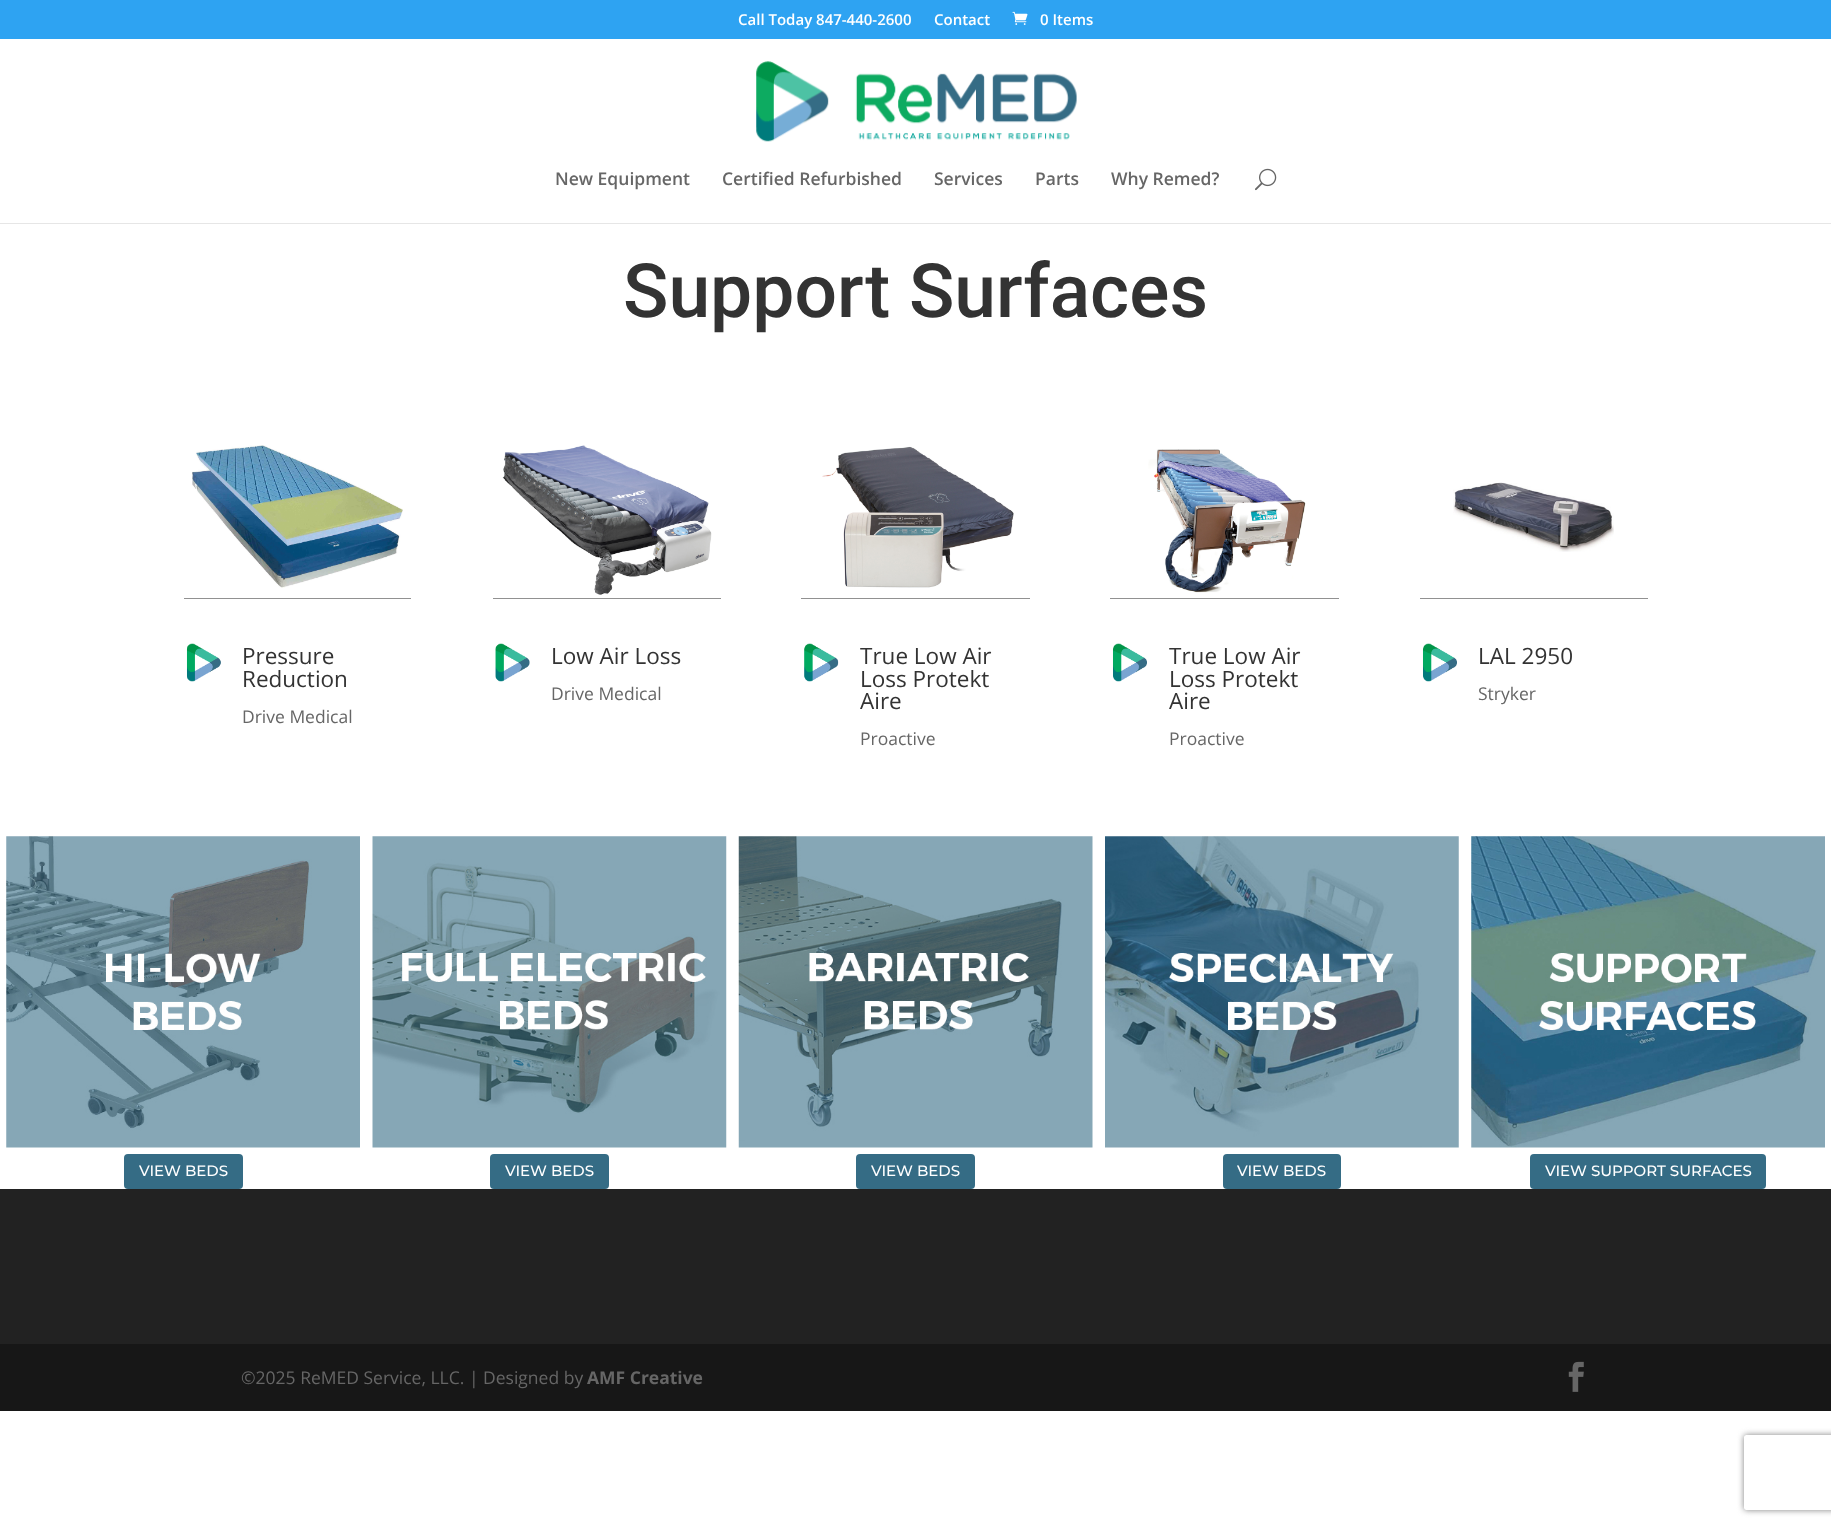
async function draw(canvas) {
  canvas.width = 1831
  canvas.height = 1527
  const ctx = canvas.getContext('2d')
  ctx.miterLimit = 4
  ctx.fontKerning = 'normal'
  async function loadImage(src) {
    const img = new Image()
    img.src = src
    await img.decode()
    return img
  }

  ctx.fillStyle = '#fff'
  ctx.fillRect(0, 0, 1831, 1527)
  ctx.fillStyle = '#2ea3f2'
  ctx.fillRect(0, 0, 1831, 39)
  ctx.font = '600 15px Open Sans'
  ctx.fillStyle = '#fff'
  ctx.fillText('Call Today 847-440-2600', 738, 25)
  ctx.fillText('Contact', 934, 25)
  ctx.drawImage(await loadImage('image0.png'), 1012, 11, 16, 14)
  ctx.fillText('0 Items', 1040, 25)
  ctx.fillStyle = '#e6e6e6'
  ctx.fillRect(0, 223, 1831, 1)
  ctx.drawImage(await loadImage('image1.png'), 756, 61, 321, 81)
  ctx.font = '600 17.5px Open Sans'
  ctx.fillStyle = '#666'
  ctx.fillText('New Equipment', 555, 185)
  ctx.fillText('Certified Refurbished', 722, 185)
  ctx.fillText('Services', 934, 185)
  ctx.fillText('Parts', 1035, 185)
  ctx.fillText('Why Remed?', 1111, 185)
  ctx.drawImage(await loadImage('image2.png'), 1255, 168, 22, 23)
  ctx.font = '500 75px Roboto'
  ctx.fillStyle = '#333'
  ctx.fillText('Support Surfaces', 623, 317)
  ctx.drawImage(await loadImage('image3.png'), 192, 445, 211, 143)
  ctx.fillStyle = '#919191'
  ctx.fillRect(184, 598, 227, 1)
  ctx.drawImage(await loadImage('image4.png'), 186, 643, 35, 39)
  ctx.font = '22.5px Open Sans'
  ctx.fillStyle = '#333'
  ctx.fillText('Pressure', 242, 664)
  ctx.fillText('Reduction', 242, 687)
  ctx.font = '17.5px Open Sans'
  ctx.fillStyle = '#666'
  ctx.fillText('Drive Medical', 242, 723)
  ctx.drawImage(await loadImage('image5.png'), 502, 445, 210, 150)
  ctx.fillStyle = '#919191'
  ctx.fillRect(493, 598, 228, 1)
  ctx.drawImage(await loadImage('image6.png'), 495, 643, 35, 39)
  ctx.font = '22.5px Open Sans'
  ctx.fillStyle = '#333'
  ctx.fillText('Low Air Loss', 551, 664)
  ctx.font = '17.5px Open Sans'
  ctx.fillStyle = '#666'
  ctx.fillText('Drive Medical', 551, 700)
  ctx.drawImage(await loadImage('image7.png'), 822, 446, 192, 142)
  ctx.fillStyle = '#919191'
  ctx.fillRect(801, 598, 229, 1)
  ctx.drawImage(await loadImage('image8.png'), 804, 643, 35, 39)
  ctx.font = '22.5px Open Sans'
  ctx.fillStyle = '#333'
  ctx.fillText('True Low Air', 860, 664)
  ctx.fillText('Loss Protekt', 860, 687)
  ctx.fillText('Aire', 860, 709)
  ctx.font = '17.5px Open Sans'
  ctx.fillStyle = '#666'
  ctx.fillText('Proactive', 860, 745)
  ctx.drawImage(await loadImage('image9.png'), 1148, 449, 158, 144)
  ctx.fillStyle = '#919191'
  ctx.fillRect(1110, 598, 229, 1)
  ctx.drawImage(await loadImage('image10.png'), 1112, 643, 35, 39)
  ctx.font = '22.5px Open Sans'
  ctx.fillStyle = '#333'
  ctx.fillText('True Low Air', 1169, 664)
  ctx.fillText('Loss Protekt', 1169, 687)
  ctx.fillText('Aire', 1169, 709)
  ctx.font = '17.5px Open Sans'
  ctx.fillStyle = '#666'
  ctx.fillText('Proactive', 1169, 745)
  ctx.drawImage(await loadImage('image11.png'), 1453, 482, 161, 70)
  ctx.fillStyle = '#919191'
  ctx.fillRect(1420, 598, 228, 1)
  ctx.drawImage(await loadImage('image10.png'), 1422, 643, 35, 39)
  ctx.font = '22.5px Open Sans'
  ctx.fillStyle = '#333'
  ctx.fillText('LAL 2950', 1478, 664)
  ctx.font = '17.5px Open Sans'
  ctx.fillStyle = '#666'
  ctx.fillText('Stryker', 1478, 700)
  ctx.drawImage(await loadImage('image12.png'), 6, 836, 354, 312)
  ctx.fillStyle = '#356c85'
  ctx.beginPath()
  ctx.roundRect(124, 1154, 119, 35, 4)
  ctx.fill()
  ctx.font = '500 15px Montserrat'
  ctx.fillStyle = '#fff'
  ctx.fillText('VIEW BEDS', 139, 1176)
  ctx.drawImage(await loadImage('image13.png'), 372, 836, 355, 312)
  ctx.fillStyle = '#356c85'
  ctx.beginPath()
  ctx.roundRect(490, 1154, 119, 35, 4)
  ctx.fill()
  ctx.fillStyle = '#fff'
  ctx.fillText('VIEW BEDS', 505, 1176)
  ctx.drawImage(await loadImage('image14.png'), 738, 836, 355, 312)
  ctx.fillStyle = '#356c85'
  ctx.beginPath()
  ctx.roundRect(856, 1154, 119, 35, 4)
  ctx.fill()
  ctx.fillStyle = '#fff'
  ctx.fillText('VIEW BEDS', 871, 1176)
  ctx.drawImage(await loadImage('image15.png'), 1105, 836, 354, 312)
  ctx.fillStyle = '#356c85'
  ctx.beginPath()
  ctx.roundRect(1223, 1154, 118, 35, 4)
  ctx.fill()
  ctx.fillStyle = '#fff'
  ctx.fillText('VIEW BEDS', 1237, 1176)
  ctx.drawImage(await loadImage('image16.png'), 1471, 836, 354, 312)
  ctx.fillStyle = '#356c85'
  ctx.beginPath()
  ctx.roundRect(1530, 1154, 236, 35, 4)
  ctx.fill()
  ctx.fillStyle = '#fff'
  ctx.fillText('VIEW SUPPORT SURFACES', 1545, 1176)
  ctx.fillStyle = '#222'
  ctx.fillRect(0, 1189, 1831, 155)
  ctx.fillStyle = '#171717'
  ctx.fillRect(0, 1344, 1831, 67)
  ctx.font = '17.5px Open Sans'
  ctx.fillStyle = '#666'
  ctx.fillText('©2025 ReMED Service, LLC. | Designed by', 241, 1384)
  ctx.font = 'bold 17.5px Open Sans'
  ctx.fillText('AMF Creative', 587, 1384)
  ctx.drawImage(await loadImage('image17.png'), 1568, 1361, 16, 31)
  ctx.save()
  ctx.beginPath()
  ctx.moveTo(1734, 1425)
  ctx.lineTo(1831, 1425)
  ctx.lineTo(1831, 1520)
  ctx.lineTo(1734, 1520)
  ctx.closePath()
  ctx.moveTo(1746.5, 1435)
  ctx.lineTo(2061.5, 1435)
  ctx.bezierCurveTo(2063, 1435, 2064, 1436, 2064, 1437.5)
  ctx.lineTo(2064, 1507.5)
  ctx.bezierCurveTo(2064, 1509, 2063, 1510, 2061.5, 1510)
  ctx.lineTo(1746.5, 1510)
  ctx.bezierCurveTo(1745, 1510, 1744, 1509, 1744, 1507.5)
  ctx.lineTo(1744, 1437.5)
  ctx.bezierCurveTo(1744, 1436, 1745, 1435, 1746.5, 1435)
  ctx.closePath()
  ctx.clip('evenodd')
  ctx.fillStyle = '#808080'
  ctx.filter = 'blur(3px)'
  ctx.beginPath()
  ctx.roundRect(1744, 1435, 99, 75, 2.5)
  ctx.fill()
  ctx.filter = 'none'
  ctx.restore()
}

draw(document.querySelector('canvas'))
